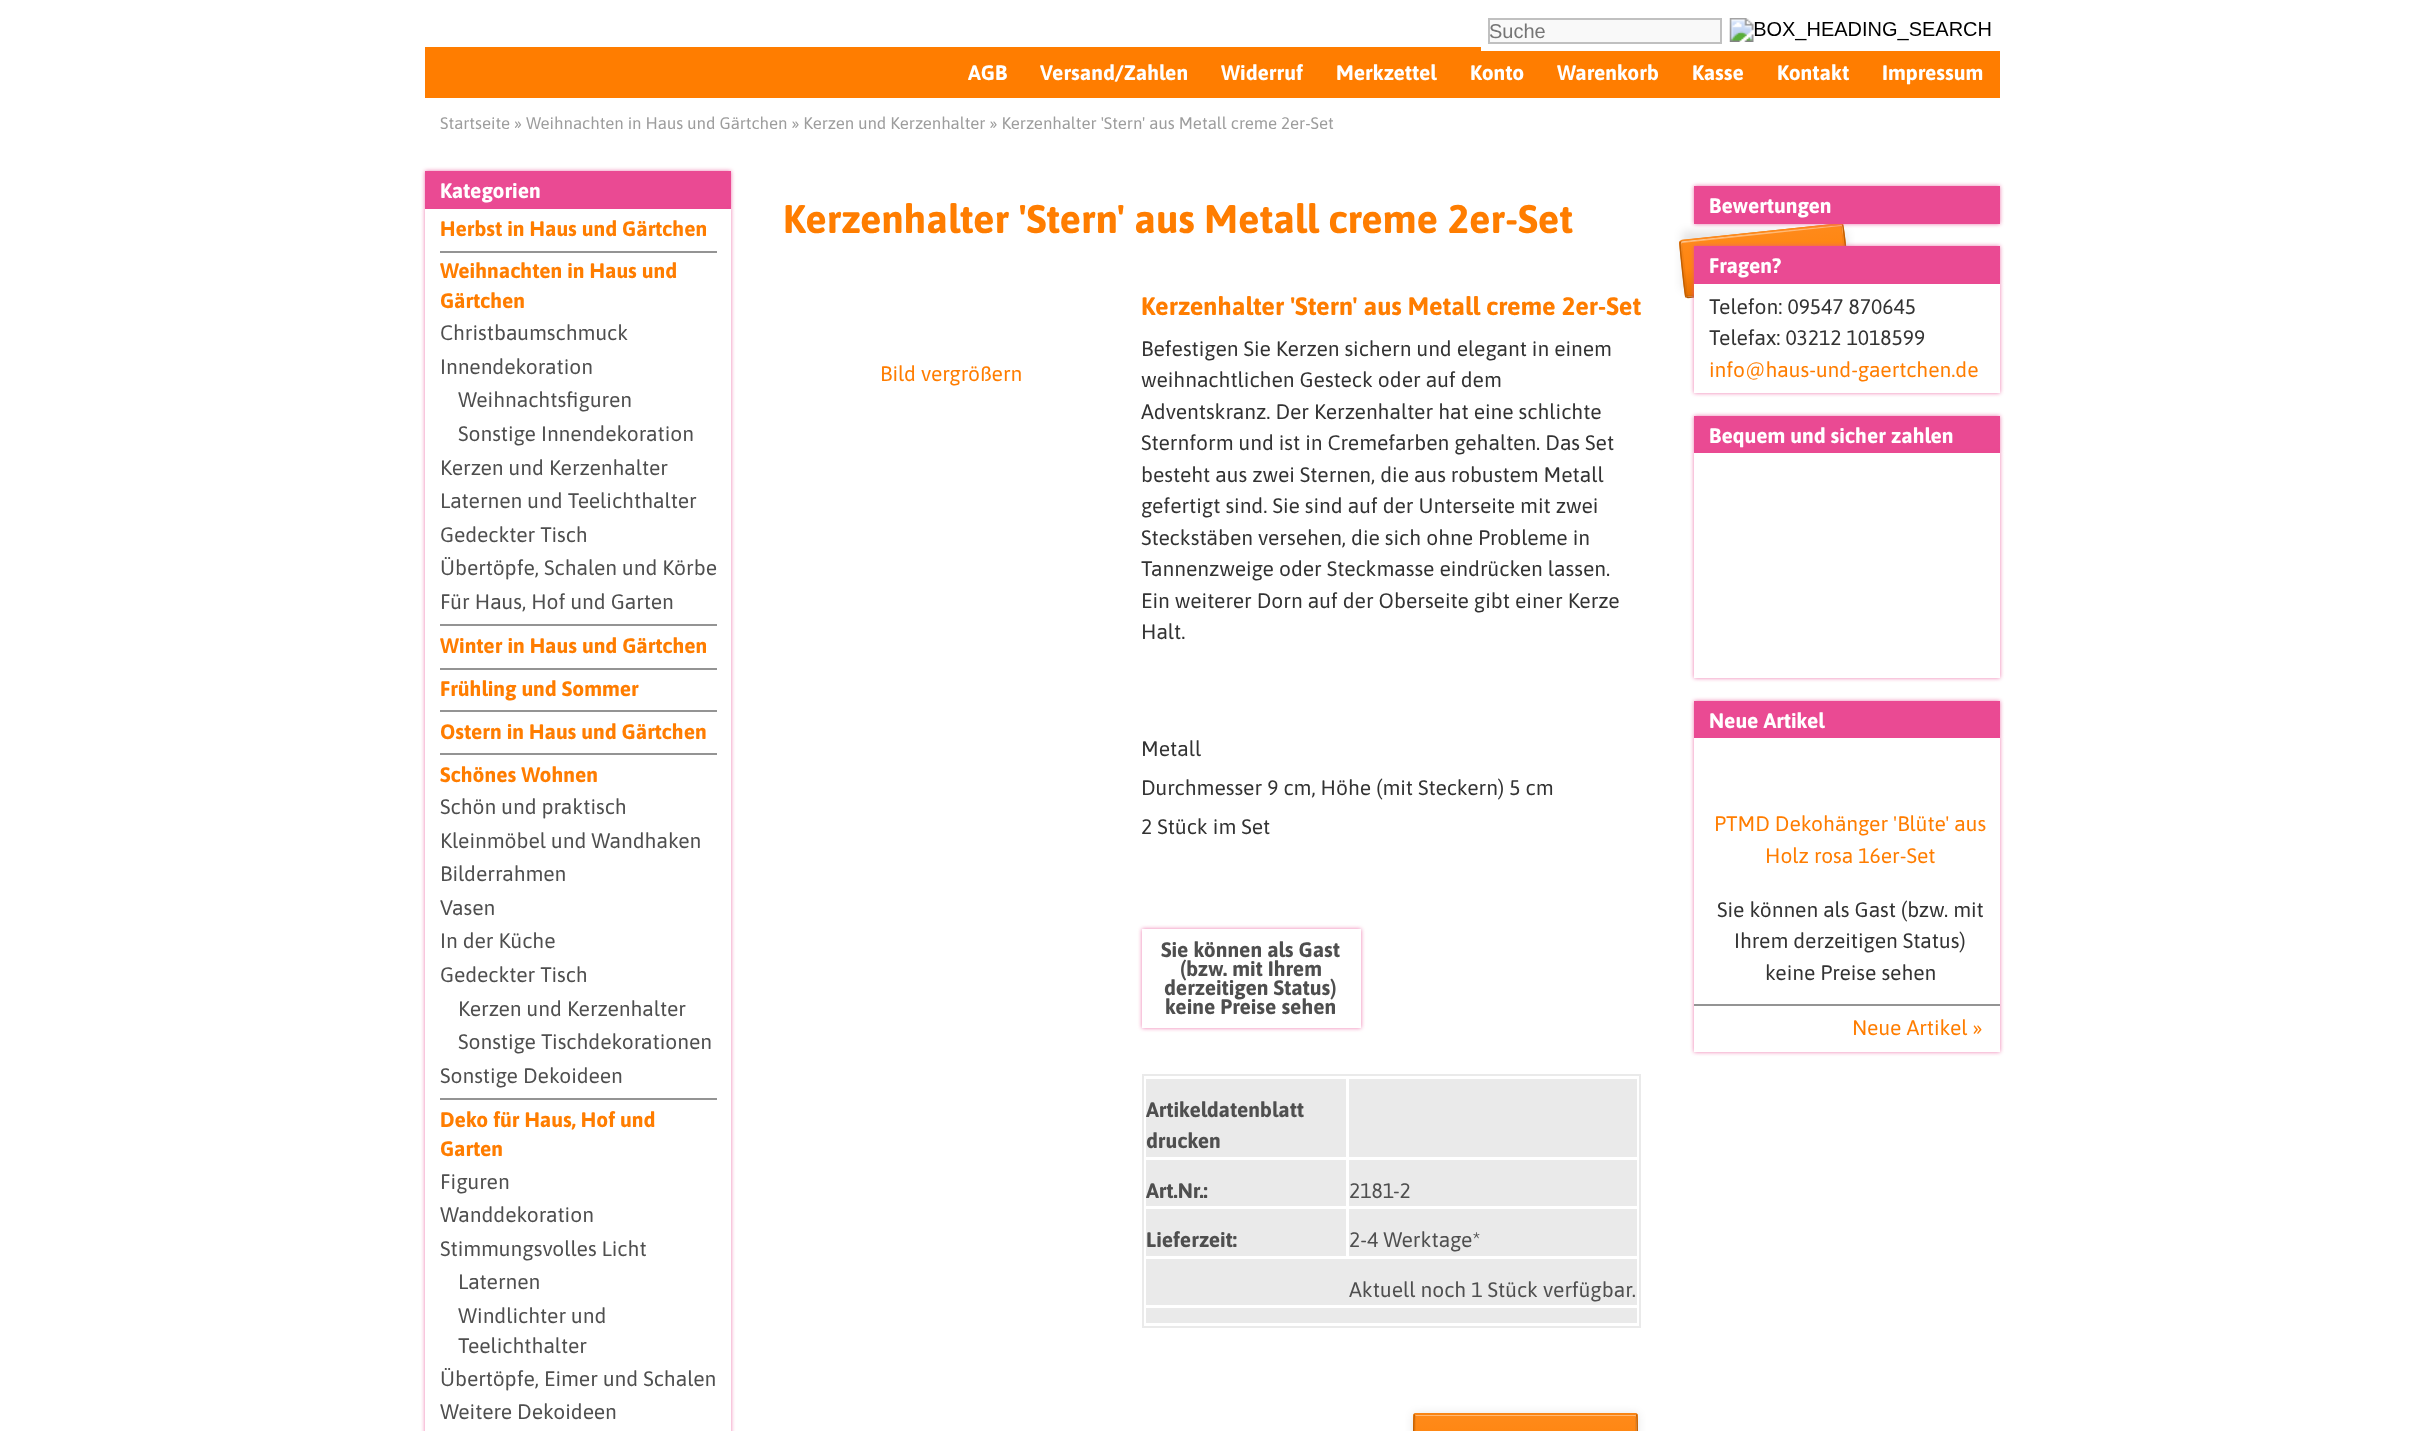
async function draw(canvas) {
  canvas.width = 2423
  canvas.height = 1431
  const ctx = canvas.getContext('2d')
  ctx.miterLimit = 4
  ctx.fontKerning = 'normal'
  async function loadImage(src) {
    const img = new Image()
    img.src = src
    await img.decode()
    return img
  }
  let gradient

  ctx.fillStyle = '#fff'
  ctx.fillRect(0, 0, 2423, 1431)
  ctx.fillStyle = '#ff7d00'
  ctx.fillRect(425, 47, 1575, 51)
  ctx.fillStyle = '#fff'
  ctx.fillRect(1481, 47, 519, 4)
  ctx.fillStyle = '#f9f9f9'
  ctx.beginPath()
  ctx.rect(1489, 19, 232, 24)
  ctx.fill()
  ctx.strokeStyle = '#c0c0c0'
  ctx.lineWidth = 2
  ctx.stroke()
  ctx.font = '20px Liberation Sans'
  ctx.fillStyle = '#757575'
  ctx.fillText('Suche', 1489, 38)
  ctx.drawImage(await loadImage('image0.png'), 1729, 18, 262, 24)
  ctx.font = 'bold 21px Asap'
  ctx.fillStyle = '#fff'
  ctx.fillText('AGB', 968, 80)
  ctx.fillText('Versand/Zahlen', 1040, 80)
  ctx.fillText('Widerruf', 1221, 80)
  ctx.fillText('Merkzettel', 1336, 80)
  ctx.fillText('Konto', 1470, 80)
  ctx.fillText('Warenkorb', 1557, 80)
  ctx.fillText('Kasse', 1692, 80)
  ctx.fillText('Kontakt', 1777, 80)
  ctx.fillText('Impressum', 1882, 80)
  ctx.font = '16.8px Asap'
  ctx.fillStyle = '#9d9d9d'
  ctx.fillText('Startseite » Weihnachten in Haus und Gärtchen » Kerzen und Kerzenhalter » Kerzenhalter \'Stern\' aus Metall creme 2er-Set', 440, 129)
  ctx.fillStyle = '#0000001a'
  ctx.filter = 'blur(4px)'
  ctx.beginPath()
  ctx.roundRect(1682, 231, 165, 59, 3)
  ctx.fill()
  ctx.filter = 'none'
  gradient = ctx.createLinearGradient(1756, 177, 1761, 233)
  gradient.addColorStop(0, '#ff8a1a')
  gradient.addColorStop(0.5, '#ff850f')
  gradient.addColorStop(1, '#e67100')
  ctx.fillStyle = gradient
  ctx.beginPath()
  ctx.moveTo(1682, 240)
  ctx.lineTo(1841, 223)
  ctx.lineTo(1843, 224)
  ctx.lineTo(1679, 242)
  ctx.bezierCurveTo(1680, 241, 1681, 240, 1682, 240)
  ctx.closePath()
  ctx.fill()
  gradient = ctx.createLinearGradient(1761, 233, 1767, 288)
  gradient.addColorStop(0, '#ff8a1a')
  gradient.addColorStop(0.5, '#ff850f')
  gradient.addColorStop(1, '#e67100')
  ctx.fillStyle = gradient
  ctx.beginPath()
  ctx.moveTo(1682, 270)
  ctx.lineTo(1679, 242)
  ctx.lineTo(1843, 224)
  ctx.bezierCurveTo(1844, 225, 1850, 279, 1849, 280)
  ctx.lineTo(1685, 297)
  ctx.closePath()
  ctx.fill()
  ctx.fillStyle = '#0000000d'
  ctx.beginPath()
  ctx.moveTo(1781, 231)
  ctx.lineTo(1839, 225)
  ctx.bezierCurveTo(1840, 225, 1841, 225, 1841, 226)
  ctx.lineTo(1846, 279)
  ctx.bezierCurveTo(1846, 279, 1846, 280, 1845, 280)
  ctx.lineTo(1702, 295)
  ctx.lineTo(1847, 280)
  ctx.bezierCurveTo(1847, 280, 1848, 279, 1848, 278)
  ctx.lineTo(1842, 226)
  ctx.bezierCurveTo(1842, 225, 1842, 225, 1841, 225)
  ctx.closePath()
  ctx.fill()
  ctx.beginPath()
  ctx.moveTo(1682, 241)
  ctx.bezierCurveTo(1681, 241, 1681, 242, 1681, 243)
  ctx.lineTo(1686, 295)
  ctx.bezierCurveTo(1686, 296, 1687, 297, 1688, 297)
  ctx.lineTo(1689, 297)
  ctx.bezierCurveTo(1687, 294, 1687, 287, 1687, 286)
  ctx.lineTo(1682, 243)
  ctx.lineTo(1683, 241)
  ctx.closePath()
  ctx.fill()
  ctx.beginPath()
  ctx.moveTo(1681, 242)
  ctx.bezierCurveTo(1680, 243, 1685, 281, 1685, 286)
  ctx.closePath()
  ctx.moveTo(1686, 295)
  ctx.bezierCurveTo(1686, 296, 1686, 297, 1688, 297)
  ctx.lineTo(1847, 280)
  ctx.lineTo(1848, 280)
  ctx.lineTo(1848, 278)
  ctx.lineTo(1847, 279)
  ctx.lineTo(1741, 290)
  ctx.lineTo(1688, 295)
  ctx.closePath()
  ctx.moveTo(1844, 241)
  ctx.lineTo(1842, 225)
  ctx.closePath()
  ctx.fill('evenodd')
  ctx.fillStyle = '#ffffff66'
  ctx.beginPath()
  ctx.moveTo(1682, 243)
  ctx.lineTo(1841, 226)
  ctx.bezierCurveTo(1842, 226, 1842, 227, 1842, 227)
  ctx.lineTo(1848, 279)
  ctx.lineTo(1843, 235)
  ctx.bezierCurveTo(1843, 232, 1844, 224, 1841, 225)
  ctx.lineTo(1708, 238)
  ctx.bezierCurveTo(1676, 242, 1680, 234, 1682, 260)
  ctx.bezierCurveTo(1682, 257, 1680, 243, 1682, 243)
  ctx.closePath()
  ctx.fill()
  ctx.beginPath()
  ctx.moveTo(1680.5, 241.5)
  ctx.lineTo(1682, 240.5)
  ctx.lineTo(1840.5, 224)
  ctx.lineTo(1842.5, 224.5)
  ctx.strokeStyle = '#ff8a1a'
  ctx.lineWidth = 1.5
  ctx.stroke()
  ctx.beginPath()
  ctx.moveTo(1842.5, 224.5)
  ctx.bezierCurveTo(1843.5, 225.5, 1848.5, 274, 1848.5, 278.5)
  ctx.lineTo(1848, 280)
  ctx.strokeStyle = '#c25f00'
  ctx.stroke()
  ctx.beginPath()
  ctx.moveTo(1848, 280)
  ctx.lineTo(1846.5, 281)
  ctx.lineTo(1688, 297.5)
  ctx.lineTo(1686.5, 297)
  ctx.strokeStyle = '#b35800'
  ctx.stroke()
  ctx.beginPath()
  ctx.moveTo(1686.5, 297)
  ctx.lineTo(1686, 297)
  ctx.bezierCurveTo(1685, 296, 1680, 247.5, 1680, 243)
  ctx.lineTo(1680.5, 241.5)
  ctx.strokeStyle = '#c25f00'
  ctx.stroke()
  ctx.fillStyle = '#ea4a93bf'
  ctx.filter = 'blur(2px)'
  ctx.beginPath()
  ctx.rect(425, 171, 306, 38)
  ctx.fill()
  ctx.filter = 'none'
  ctx.fillStyle = '#ea4a93'
  ctx.fillRect(425, 171, 306, 38)
  ctx.fillStyle = '#ea4a93bf'
  ctx.filter = 'blur(2px)'
  ctx.beginPath()
  ctx.rect(425, 209, 306, 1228)
  ctx.fill()
  ctx.filter = 'none'
  ctx.font = 'bold 21px Asap'
  ctx.fillStyle = '#fff'
  ctx.fillText('Kategorien', 440, 198)
  ctx.fillRect(425, 209, 306, 1222)
  ctx.fillStyle = '#949494'
  ctx.fillRect(440, 251, 277, 2)
  ctx.fillStyle = '#ff7d00'
  ctx.fillText('Herbst in Haus und Gärtchen', 440, 236)
  ctx.fillStyle = '#949494'
  ctx.fillRect(440, 624, 277, 2)
  ctx.fillStyle = '#ff7d00'
  ctx.fillText('Weihnachten in Haus und', 440, 278)
  ctx.fillText('Gärtchen', 440, 308)
  ctx.font = '21px Asap'
  ctx.fillStyle = '#4f4f4f'
  ctx.fillText('Christbaumschmuck', 440, 340)
  ctx.fillText('Innendekoration', 440, 374)
  ctx.fillText('Weihnachtsfiguren', 458, 407)
  ctx.fillText('Sonstige Innendekoration', 458, 441)
  ctx.fillText('Kerzen und Kerzenhalter', 440, 475)
  ctx.fillText('Laternen und Teelichthalter', 440, 508)
  ctx.fillText('Gedeckter Tisch', 440, 542)
  ctx.fillText('Übertöpfe, Schalen und Körbe', 440, 575)
  ctx.fillText('Für Haus, Hof und Garten', 440, 609)
  ctx.fillStyle = '#949494'
  ctx.fillRect(440, 668, 277, 2)
  ctx.font = 'bold 21px Asap'
  ctx.fillStyle = '#ff7d00'
  ctx.fillText('Winter in Haus und Gärtchen', 440, 653)
  ctx.fillStyle = '#949494'
  ctx.fillRect(440, 710, 277, 2)
  ctx.fillStyle = '#ff7d00'
  ctx.fillText('Frühling und Sommer', 440, 696)
  ctx.fillStyle = '#949494'
  ctx.fillRect(440, 753, 277, 2)
  ctx.fillStyle = '#ff7d00'
  ctx.fillText('Ostern in Haus und Gärtchen', 440, 739)
  ctx.fillStyle = '#949494'
  ctx.fillRect(440, 1098, 277, 2)
  ctx.fillStyle = '#ff7d00'
  ctx.fillText('Schönes Wohnen', 440, 782)
  ctx.font = '21px Asap'
  ctx.fillStyle = '#4f4f4f'
  ctx.fillText('Schön und praktisch', 440, 814)
  ctx.fillText('Kleinmöbel und Wandhaken', 440, 848)
  ctx.fillText('Bilderrahmen', 440, 881)
  ctx.fillText('Vasen', 440, 915)
  ctx.fillText('In der Küche', 440, 948)
  ctx.fillText('Gedeckter Tisch', 440, 982)
  ctx.fillText('Kerzen und Kerzenhalter', 458, 1016)
  ctx.fillText('Sonstige Tischdekorationen', 458, 1049)
  ctx.fillText('Sonstige Dekoideen', 440, 1083)
  ctx.font = 'bold 21px Asap'
  ctx.fillStyle = '#ff7d00'
  ctx.fillText('Deko für Haus, Hof und', 440, 1127)
  ctx.fillText('Garten', 440, 1156)
  ctx.font = '21px Asap'
  ctx.fillStyle = '#4f4f4f'
  ctx.fillText('Figuren', 440, 1189)
  ctx.fillText('Wanddekoration', 440, 1222)
  ctx.fillText('Stimmungsvolles Licht', 440, 1256)
  ctx.fillText('Laternen', 458, 1289)
  ctx.fillText('Windlichter und', 458, 1323)
  ctx.fillText('Teelichthalter', 458, 1353)
  ctx.fillText('Übertöpfe, Eimer und Schalen', 440, 1386)
  ctx.fillText('Weitere Dekoideen', 440, 1419)
  ctx.font = 'bold 39.9px Asap'
  ctx.fillStyle = '#ff7d00'
  ctx.fillText('Kerzenhalter \'Stern\' aus Metall creme 2er-Set', 783, 233)
  ctx.font = '21px Asap'
  ctx.fillText('Bild vergrößern', 880, 381)
  ctx.font = 'bold 25.25px Asap'
  ctx.fillText('Kerzenhalter \'Stern\' aus Metall creme 2er-Set', 1141, 315)
  ctx.font = '21px Asap'
  ctx.fillStyle = '#333'
  ctx.fillText('Befestigen Sie Kerzen sichern und elegant in einem', 1141, 356)
  ctx.fillText('weihnachtlichen Gesteck oder auf dem', 1141, 387)
  ctx.fillText('Adventskranz. Der Kerzenhalter hat eine schlichte', 1141, 419)
  ctx.fillText('Sternform und ist in Cremefarben gehalten. Das Set', 1141, 450)
  ctx.fillText('besteht aus zwei Sternen, die aus robustem Metall', 1141, 482)
  ctx.fillText('gefertigt sind. Sie sind auf der Unterseite mit zwei', 1141, 513)
  ctx.fillText('Steckstäben versehen, die sich ohne Probleme in', 1141, 545)
  ctx.fillText('Tannenzweige oder Steckmasse eindrücken lassen.', 1141, 576)
  ctx.fillText('Ein weiterer Dorn auf der Oberseite gibt einer Kerze', 1141, 608)
  ctx.fillText('Halt.', 1141, 639)
  ctx.fillText('Metall', 1141, 756)
  ctx.fillText('Durchmesser 9 cm, Höhe (mit Steckern) 5 cm', 1141, 795)
  ctx.fillText('2 Stück im Set', 1141, 834)
  ctx.fillStyle = '#ea4a93bf'
  ctx.filter = 'blur(2px)'
  ctx.beginPath()
  ctx.rect(1142, 929, 219, 99)
  ctx.fill()
  ctx.filter = 'none'
  ctx.fillStyle = '#fff'
  ctx.fillRect(1142, 929, 219, 99)
  ctx.font = 'bold 21px Asap'
  ctx.fillStyle = '#4f4f4f'
  ctx.fillText('Sie können als Gast', 1161, 957)
  ctx.fillText('(bzw. mit Ihrem', 1180, 976)
  ctx.fillText('derzeitigen Status)', 1164, 995)
  ctx.fillText('keine Preise sehen', 1165, 1014)
  ctx.strokeStyle = '#eaeaea'
  ctx.lineWidth = 2
  ctx.strokeRect(1143, 1075, 497, 252)
  ctx.fillStyle = '#eaeaea'
  ctx.fillRect(1146, 1079, 200, 78)
  ctx.fillStyle = '#4f4f4f'
  ctx.fillText('Artikeldatenblatt', 1146, 1117)
  ctx.fillText('drucken', 1146, 1148)
  ctx.fillStyle = '#eaeaea'
  ctx.fillRect(1349, 1079, 288, 78)
  ctx.fillRect(1146, 1160, 200, 46)
  ctx.fillStyle = '#4f4f4f'
  ctx.fillText('Art.Nr.:', 1146, 1198)
  ctx.fillStyle = '#eaeaea'
  ctx.fillRect(1349, 1160, 288, 46)
  ctx.font = '21px Asap'
  ctx.fillStyle = '#4f4f4f'
  ctx.fillText('2181-2', 1349, 1198)
  ctx.fillStyle = '#eaeaea'
  ctx.fillRect(1146, 1209, 200, 47)
  ctx.font = 'bold 21px Asap'
  ctx.fillStyle = '#4f4f4f'
  ctx.fillText('Lieferzeit:', 1146, 1247)
  ctx.fillStyle = '#eaeaea'
  ctx.fillRect(1349, 1209, 288, 47)
  ctx.font = '21px Asap'
  ctx.fillStyle = '#4f4f4f'
  ctx.fillText('2-4 Werktage*', 1349, 1247)
  ctx.fillStyle = '#eaeaea'
  ctx.fillRect(1146, 1259, 491, 46)
  ctx.fillStyle = '#4f4f4f'
  ctx.fillText('Aktuell noch 1 Stück verfügbar.', 1349, 1297)
  ctx.fillStyle = '#eaeaea'
  ctx.fillRect(1146, 1308, 491, 15)
  ctx.fillStyle = '#0000001a'
  ctx.filter = 'blur(4px)'
  ctx.beginPath()
  ctx.roundRect(1413, 1413, 225, 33, 3)
  ctx.fill()
  ctx.filter = 'none'
  ctx.save()
  ctx.beginPath()
  ctx.roundRect(1413, 1413, 225, 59, 3)
  ctx.clip()
  gradient = ctx.createLinearGradient(1526, 1359, 1526, 1415)
  gradient.addColorStop(0, '#ff8a1a')
  gradient.addColorStop(0.5, '#ff850f')
  gradient.addColorStop(1, '#e67100')
  ctx.fillStyle = gradient
  ctx.fillRect(1413, 1413, 225, 2)
  ctx.restore()
  gradient = ctx.createLinearGradient(1526, 1415, 1526, 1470)
  gradient.addColorStop(0, '#ff8a1a')
  gradient.addColorStop(0.5, '#ff850f')
  gradient.addColorStop(1, '#e67100')
  ctx.fillStyle = gradient
  ctx.fillRect(1413, 1415, 225, 16)
  ctx.fillStyle = '#0000000d'
  ctx.beginPath()
  ctx.moveTo(1634, 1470)
  ctx.bezierCurveTo(1639, 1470, 1637, 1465, 1637, 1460)
  ctx.lineTo(1637, 1425)
  ctx.bezierCurveTo(1637, 1422, 1639, 1415, 1635, 1415)
  ctx.lineTo(1635, 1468)
  ctx.closePath()
  ctx.fill()
  ctx.beginPath()
  ctx.moveTo(1416, 1415)
  ctx.bezierCurveTo(1416, 1415, 1415, 1416, 1415, 1416)
  ctx.lineTo(1415, 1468)
  ctx.bezierCurveTo(1415, 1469, 1416, 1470, 1416, 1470)
  ctx.lineTo(1418, 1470)
  ctx.bezierCurveTo(1415, 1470, 1416, 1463, 1416, 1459)
  ctx.closePath()
  ctx.fill()
  ctx.beginPath()
  ctx.moveTo(1415, 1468)
  ctx.bezierCurveTo(1415, 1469, 1415, 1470, 1416, 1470)
  ctx.lineTo(1636, 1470)
  ctx.bezierCurveTo(1639, 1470, 1637, 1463, 1637, 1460)
  ctx.lineTo(1637, 1416)
  ctx.lineTo(1636, 1415)
  ctx.lineTo(1636, 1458)
  ctx.bezierCurveTo(1636, 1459, 1638, 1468, 1635, 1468)
  ctx.closePath()
  ctx.fill()
  ctx.fillStyle = '#ffffff66'
  ctx.beginPath()
  ctx.moveTo(1416, 1416)
  ctx.lineTo(1635, 1416)
  ctx.bezierCurveTo(1636, 1416, 1636, 1417, 1636, 1418)
  ctx.lineTo(1636, 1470)
  ctx.bezierCurveTo(1637, 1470, 1637, 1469, 1637, 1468)
  ctx.lineTo(1637, 1416)
  ctx.bezierCurveTo(1637, 1416, 1636, 1415, 1636, 1415)
  ctx.lineTo(1416, 1415)
  ctx.bezierCurveTo(1416, 1415, 1415, 1416, 1415, 1416)
  ctx.closePath()
  ctx.fill()
  ctx.beginPath()
  ctx.moveTo(1414.5, 1414.5)
  ctx.lineTo(1416, 1414)
  ctx.lineTo(1635, 1414)
  ctx.lineTo(1636.5, 1414.5)
  ctx.strokeStyle = '#ff8a1a'
  ctx.lineWidth = 1.5
  ctx.stroke()
  ctx.beginPath()
  ctx.moveTo(1636.5, 1414.5)
  ctx.bezierCurveTo(1637.5, 1415.5, 1637.5, 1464, 1637, 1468.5)
  ctx.lineTo(1636.5, 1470)
  ctx.strokeStyle = '#c25f00'
  ctx.stroke()
  ctx.beginPath()
  ctx.moveTo(1414.5, 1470)
  ctx.lineTo(1414, 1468.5)
  ctx.bezierCurveTo(1413.5, 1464, 1413.5, 1415.5, 1414.5, 1414.5)
  ctx.stroke()
  ctx.fillStyle = '#ea4a93bf'
  ctx.filter = 'blur(2px)'
  ctx.beginPath()
  ctx.rect(1694, 186, 306, 38)
  ctx.fill()
  ctx.filter = 'none'
  ctx.fillStyle = '#ea4a93'
  ctx.fillRect(1694, 186, 306, 38)
  ctx.font = 'bold 21px Asap'
  ctx.fillStyle = '#fff'
  ctx.fillText('Bewertungen', 1709, 213)
  ctx.fillStyle = '#ea4a93bf'
  ctx.filter = 'blur(2px)'
  ctx.beginPath()
  ctx.rect(1694, 246, 306, 38)
  ctx.fill()
  ctx.filter = 'none'
  ctx.fillStyle = '#ea4a93'
  ctx.fillRect(1694, 246, 306, 38)
  ctx.fillStyle = '#ea4a93bf'
  ctx.filter = 'blur(2px)'
  ctx.beginPath()
  ctx.rect(1694, 284, 306, 109)
  ctx.fill()
  ctx.filter = 'none'
  ctx.fillStyle = '#fff'
  ctx.fillText('Fragen?', 1709, 273)
  ctx.fillRect(1694, 284, 306, 109)
  ctx.font = '21px Asap'
  ctx.fillStyle = '#333'
  ctx.fillText('Telefon: 09547 870645', 1709, 314)
  ctx.fillText('Telefax: 03212 1018599', 1709, 345)
  ctx.fillStyle = '#ff7d00'
  ctx.fillText('info@haus-und-gaertchen.de', 1709, 377)
  ctx.fillStyle = '#ea4a93bf'
  ctx.filter = 'blur(2px)'
  ctx.beginPath()
  ctx.rect(1694, 416, 306, 37)
  ctx.fill()
  ctx.filter = 'none'
  ctx.fillStyle = '#ea4a93'
  ctx.fillRect(1694, 416, 306, 37)
  ctx.fillStyle = '#ea4a93bf'
  ctx.filter = 'blur(2px)'
  ctx.beginPath()
  ctx.rect(1694, 453, 306, 225)
  ctx.fill()
  ctx.filter = 'none'
  ctx.font = 'bold 21px Asap'
  ctx.fillStyle = '#fff'
  ctx.fillText('Bequem und sicher zahlen', 1709, 443)
  ctx.fillRect(1694, 453, 306, 225)
  ctx.fillStyle = '#ea4a93bf'
  ctx.filter = 'blur(2px)'
  ctx.beginPath()
  ctx.rect(1694, 701, 306, 37)
  ctx.fill()
  ctx.filter = 'none'
  ctx.fillStyle = '#ea4a93'
  ctx.fillRect(1694, 701, 306, 37)
  ctx.fillStyle = '#fff'
  ctx.fillText('Neue Artikel', 1709, 728)
  ctx.fillStyle = '#ea4a93bf'
  ctx.filter = 'blur(2px)'
  ctx.beginPath()
  ctx.rect(1694, 738, 306, 314)
  ctx.fill()
  ctx.filter = 'none'
  ctx.fillStyle = '#fff'
  ctx.fillRect(1694, 738, 306, 314)
  ctx.font = '21px Asap'
  ctx.fillStyle = '#ff7d00'
  ctx.fillText('PTMD Dekohänger \'Blüte\' aus', 1714, 831)
  ctx.fillText('Holz rosa 16er-Set', 1765, 863)
  ctx.fillStyle = '#333'
  ctx.fillText('Sie können als Gast (bzw. mit', 1717, 917)
  ctx.fillText('Ihrem derzeitigen Status)', 1734, 948)
  ctx.fillText('keine Preise sehen', 1765, 980)
  ctx.fillStyle = '#949494'
  ctx.fillRect(1694, 1004, 306, 2)
  ctx.fillStyle = '#ff7d00'
  ctx.fillText('Neue Artikel »', 1852, 1035)
}

draw(document.querySelector('canvas'))
